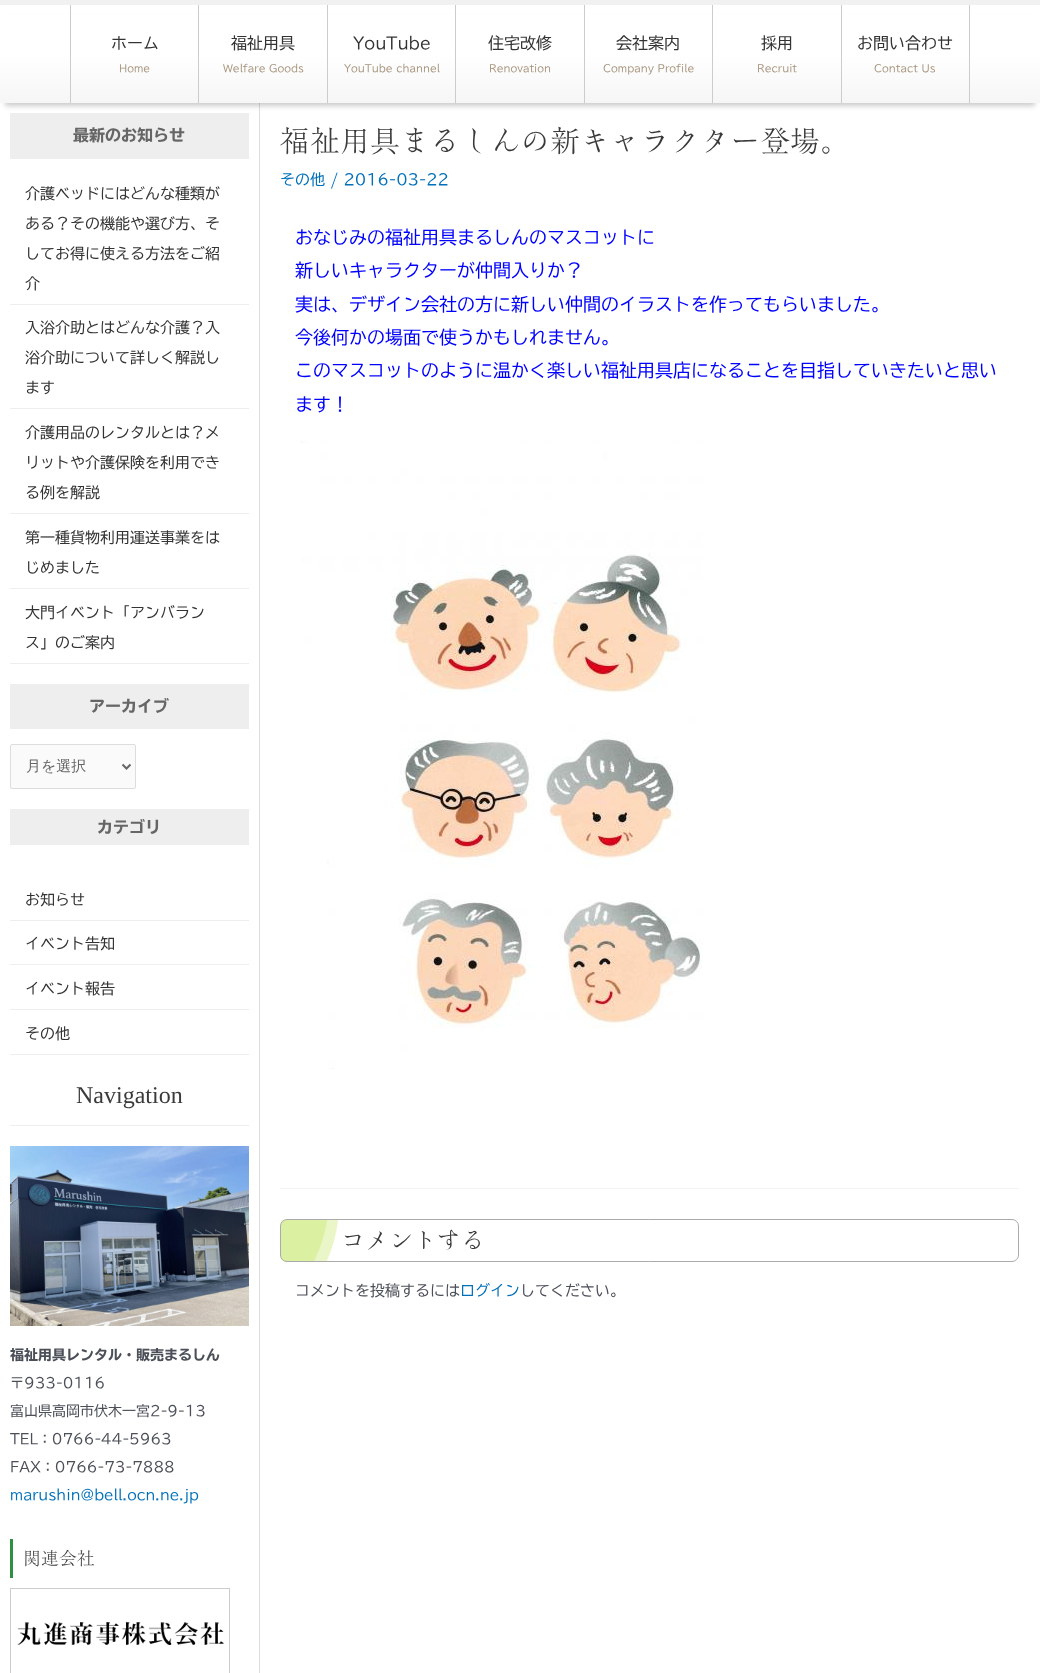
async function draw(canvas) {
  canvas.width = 1040
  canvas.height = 1673
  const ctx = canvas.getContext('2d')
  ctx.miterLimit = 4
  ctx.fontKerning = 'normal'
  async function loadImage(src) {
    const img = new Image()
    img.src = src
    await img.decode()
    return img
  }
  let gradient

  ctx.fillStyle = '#fff'
  ctx.fillRect(0, 0, 1040, 1673)
  ctx.fillStyle = '#f1f1f1'
  ctx.fillRect(0, 0, 1040, 5)
  ctx.fillStyle = '#ddd'
  ctx.fillRect(259, 103, 1, 1570)
  ctx.fillStyle = '#00000033'
  ctx.filter = 'blur(2.5px)'
  ctx.beginPath()
  ctx.rect(5, 18, 1030, 88)
  ctx.fill()
  ctx.filter = 'none'
  gradient = ctx.createLinearGradient(520, 5, 520, 103)
  gradient.addColorStop(0.5, '#fff')
  gradient.addColorStop(1, '#f6f6f6')
  ctx.fillStyle = gradient
  ctx.fillRect(0, 14, 1040, 89)
  ctx.fillStyle = '#ccc'
  ctx.fillRect(70, 5, 1, 98)
  ctx.fillRect(198, 5, 1, 98)
  ctx.font = '16px "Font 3"'
  ctx.fillStyle = '#333'
  ctx.fillText('ホーム', 111, 49)
  ctx.font = '10px "Font 3"'
  ctx.fillStyle = '#a6937c'
  ctx.fillText('Home', 119, 72)
  ctx.fillStyle = '#ccc'
  ctx.fillRect(327, 5, 1, 98)
  ctx.font = '16px "Font 3"'
  ctx.fillStyle = '#333'
  ctx.fillText('福祉用具', 231, 49)
  ctx.font = '10px "Font 3"'
  ctx.fillStyle = '#a6937c'
  ctx.fillText('Welfare Goods', 223, 72)
  ctx.fillStyle = '#ccc'
  ctx.fillRect(455, 5, 1, 98)
  ctx.font = '16px "Font 3"'
  ctx.fillStyle = '#333'
  ctx.fillText('YouTube', 353, 49)
  ctx.font = '10px "Font 3"'
  ctx.fillStyle = '#a6937c'
  ctx.fillText('YouTube channel', 344, 72)
  ctx.fillStyle = '#ccc'
  ctx.fillRect(584, 5, 1, 98)
  ctx.font = '16px "Font 3"'
  ctx.fillStyle = '#333'
  ctx.fillText('住宅改修', 488, 49)
  ctx.font = '10px "Font 3"'
  ctx.fillStyle = '#a6937c'
  ctx.fillText('Renovation', 489, 72)
  ctx.fillStyle = '#ccc'
  ctx.fillRect(712, 5, 1, 98)
  ctx.font = '16px "Font 3"'
  ctx.fillStyle = '#333'
  ctx.fillText('会社案内', 616, 49)
  ctx.font = '10px "Font 3"'
  ctx.fillStyle = '#a6937c'
  ctx.fillText('Company Profile', 603, 72)
  ctx.fillStyle = '#ccc'
  ctx.fillRect(841, 5, 1, 98)
  ctx.font = '16px "Font 3"'
  ctx.fillStyle = '#333'
  ctx.fillText('採用', 761, 49)
  ctx.font = '10px "Font 3"'
  ctx.fillStyle = '#a6937c'
  ctx.fillText('Recruit', 757, 72)
  ctx.fillStyle = '#ccc'
  ctx.fillRect(969, 5, 1, 98)
  ctx.font = '16px "Font 3"'
  ctx.fillStyle = '#333'
  ctx.fillText('お問い合わせ', 857, 49)
  ctx.font = '10px "Font 3"'
  ctx.fillStyle = '#a6937c'
  ctx.fillText('Contact Us', 874, 72)
  ctx.fillStyle = '#eee'
  ctx.fillRect(10, 113, 239, 46)
  ctx.font = '800 16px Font'
  ctx.fillStyle = '#666'
  ctx.fillText('最新のお知らせ', 73, 141)
  ctx.fillStyle = '#eee'
  ctx.fillRect(10, 304, 239, 1)
  ctx.font = '15px "Font 3"'
  ctx.fillStyle = '#333'
  ctx.fillText('介護ベッドにはどんな種類が', 25, 199)
  ctx.fillText('ある？その機能や選び方、そ', 25, 229)
  ctx.fillText('してお得に使える方法をご紹', 25, 259)
  ctx.fillText('介', 25, 289)
  ctx.fillStyle = '#eee'
  ctx.fillRect(10, 408, 239, 1)
  ctx.fillStyle = '#333'
  ctx.fillText('入浴介助とはどんな介護？入', 25, 333)
  ctx.fillText('浴介助について詳しく解説し', 25, 363)
  ctx.fillText('ます', 25, 393)
  ctx.fillStyle = '#eee'
  ctx.fillRect(10, 513, 239, 1)
  ctx.fillStyle = '#333'
  ctx.fillText('介護用品のレンタルとは？メ', 25, 438)
  ctx.fillText('リットや介護保険を利用でき', 25, 468)
  ctx.fillText('る例を解説', 25, 498)
  ctx.fillStyle = '#eee'
  ctx.fillRect(10, 588, 239, 1)
  ctx.fillStyle = '#333'
  ctx.fillText('第一種貨物利用運送事業をは', 25, 543)
  ctx.fillText('じめました', 25, 573)
  ctx.fillStyle = '#eee'
  ctx.fillRect(10, 663, 239, 1)
  ctx.fillStyle = '#333'
  ctx.fillText('大門イベント「アンバラン', 25, 618)
  ctx.fillText('ス」のご案内', 25, 648)
  ctx.fillStyle = '#eee'
  ctx.fillRect(10, 684, 239, 45)
  ctx.font = '800 16px Font'
  ctx.fillStyle = '#666'
  ctx.fillText('アーカイブ', 89, 712)
  ctx.fillStyle = '#fafafa'
  ctx.beginPath()
  ctx.roundRect(10.5, 744.5, 125, 44, 1.5)
  ctx.fill()
  ctx.strokeStyle = '#ddd'
  ctx.stroke()
  ctx.beginPath()
  ctx.moveTo(122.5, 764.5)
  ctx.lineTo(126.5, 768.5)
  ctx.lineTo(130.5, 764.5)
  ctx.strokeStyle = '#666'
  ctx.lineWidth = 2
  ctx.stroke()
  ctx.font = '500 15px WenQuanYi Zen Hei'
  ctx.fillStyle = '#666'
  ctx.fillText('月を選択', 26, 771)
  ctx.fillStyle = '#eee'
  ctx.fillRect(10, 809, 239, 36)
  ctx.font = '800 16px Font'
  ctx.fillStyle = '#666'
  ctx.fillText('カテゴリ', 97, 833)
  ctx.fillStyle = '#eee'
  ctx.fillRect(10, 920, 239, 1)
  ctx.font = '15px "Font 3"'
  ctx.fillStyle = '#333'
  ctx.fillText('お知らせ', 25, 905)
  ctx.fillStyle = '#eee'
  ctx.fillRect(10, 964, 239, 1)
  ctx.fillStyle = '#333'
  ctx.fillText('イベント告知', 25, 949)
  ctx.fillStyle = '#eee'
  ctx.fillRect(10, 1009, 239, 1)
  ctx.fillStyle = '#333'
  ctx.fillText('イベント報告', 25, 994)
  ctx.fillStyle = '#eee'
  ctx.fillRect(10, 1054, 239, 1)
  ctx.fillStyle = '#333'
  ctx.fillText('その他', 25, 1039)
  ctx.font = '24px Liberation Serif'
  ctx.fillStyle = '#3a3a3a'
  ctx.fillText('Navigation', 76, 1103)
  ctx.fillStyle = '#eee'
  ctx.fillRect(10, 1125, 239, 1)
  ctx.drawImage(await loadImage('image0.png'), 10, 1146, 239, 180)
  ctx.font = '800 14px "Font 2"'
  ctx.fillStyle = '#4b4f58'
  ctx.fillText('福祉用具レンタル・販売まるしん', 10, 1360)
  ctx.font = '14px "Font 3"'
  ctx.fillText('〒933-0116', 10, 1388)
  ctx.fillText('富山県高岡市伏木一宮2-9-13', 10, 1416)
  ctx.fillText('TEL：0766-44-5963', 10, 1444)
  ctx.fillText('FAX：0766-73-7888', 10, 1472)
  ctx.fillStyle = '#0170b9'
  ctx.fillText('marushin@bell.ocn.ne.jp', 10, 1500)
  ctx.fillStyle = '#308f40'
  ctx.fillRect(10, 1539, 3, 39)
  ctx.font = '18px Font'
  ctx.fillStyle = '#3a3a3a'
  ctx.fillText('関連会社', 23, 1565)
  ctx.drawImage(await loadImage('image1.png'), 10, 1588, 220, 85)
  ctx.font = '30px Font'
  ctx.fillText('福祉用具まるしんの新キャラクター登場。', 280, 152)
  ctx.font = '15px "Font 2"'
  ctx.fillStyle = '#0170b9'
  ctx.fillText('その他 / 2016-03-22', 280, 185)
  ctx.font = '18px "Font 2"'
  ctx.fillStyle = '#00f'
  ctx.fillText('おなじみの福祉用具まるしんのマスコットに', 295, 244)
  ctx.fillText('新しいキャラクターが仲間入りか？', 295, 277)
  ctx.fillText('実は、デザイン会社の方に新しい仲間のイラストを作ってもらいました。', 295, 311)
  ctx.fillText('今後何かの場面で使うかもしれません。', 295, 344)
  ctx.fillText('このマスコットのように温かく楽しい福祉用具店になることを目指していきたいと思い', 295, 377)
  ctx.fillText('ます！', 295, 411)
  ctx.drawImage(await loadImage('image2.png'), 300, 441, 402, 628)
  ctx.fillStyle = '#f2f5f7'
  ctx.fillRect(280, 1188, 739, 1)
  ctx.drawImage(await loadImage('image3.png'), 281, 1220, 57, 42)
  ctx.beginPath()
  ctx.roundRect(280.5, 1219.5, 738, 42, 6.5)
  ctx.strokeStyle = '#aaa'
  ctx.lineWidth = 1
  ctx.stroke()
  ctx.font = '24px Font'
  ctx.fillStyle = '#3a3a3a'
  ctx.fillText('コメントする', 341, 1249)
  ctx.font = '15px "Font 2"'
  ctx.fillStyle = '#4b4f58'
  ctx.fillText('コメントを投稿するには', 295, 1296)
  ctx.fillStyle = '#0170b9'
  ctx.fillText('ログイン', 460, 1296)
  ctx.fillStyle = '#4b4f58'
  ctx.fillText('してください。', 520, 1296)
}

draw(document.querySelector('canvas'))
